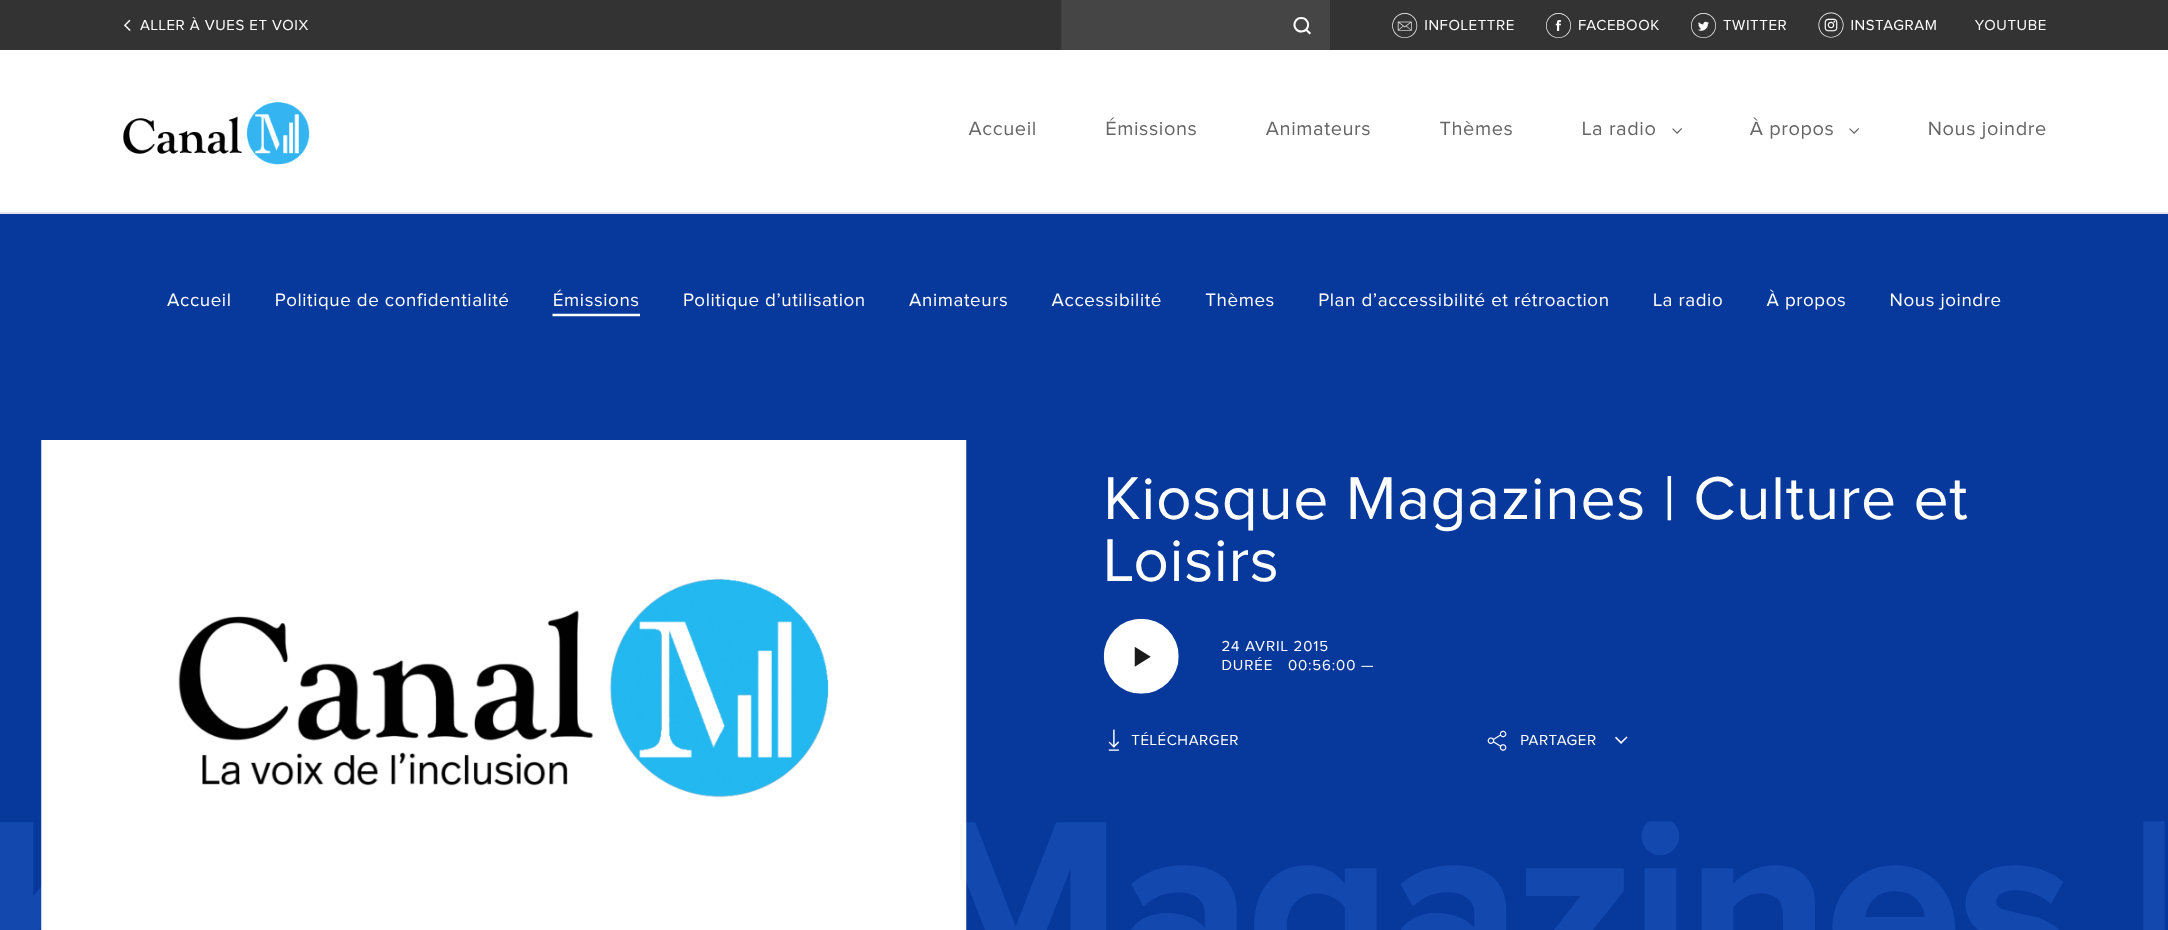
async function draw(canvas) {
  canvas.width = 2168
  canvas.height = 930
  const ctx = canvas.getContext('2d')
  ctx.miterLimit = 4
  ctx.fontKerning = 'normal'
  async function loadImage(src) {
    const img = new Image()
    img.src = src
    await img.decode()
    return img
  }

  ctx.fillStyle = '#fff'
  ctx.fillRect(0, 0, 2168, 930)
  ctx.drawImage(await loadImage('image0.png'), 0, 0, 2168, 930)
}

draw(document.querySelector('canvas'))
